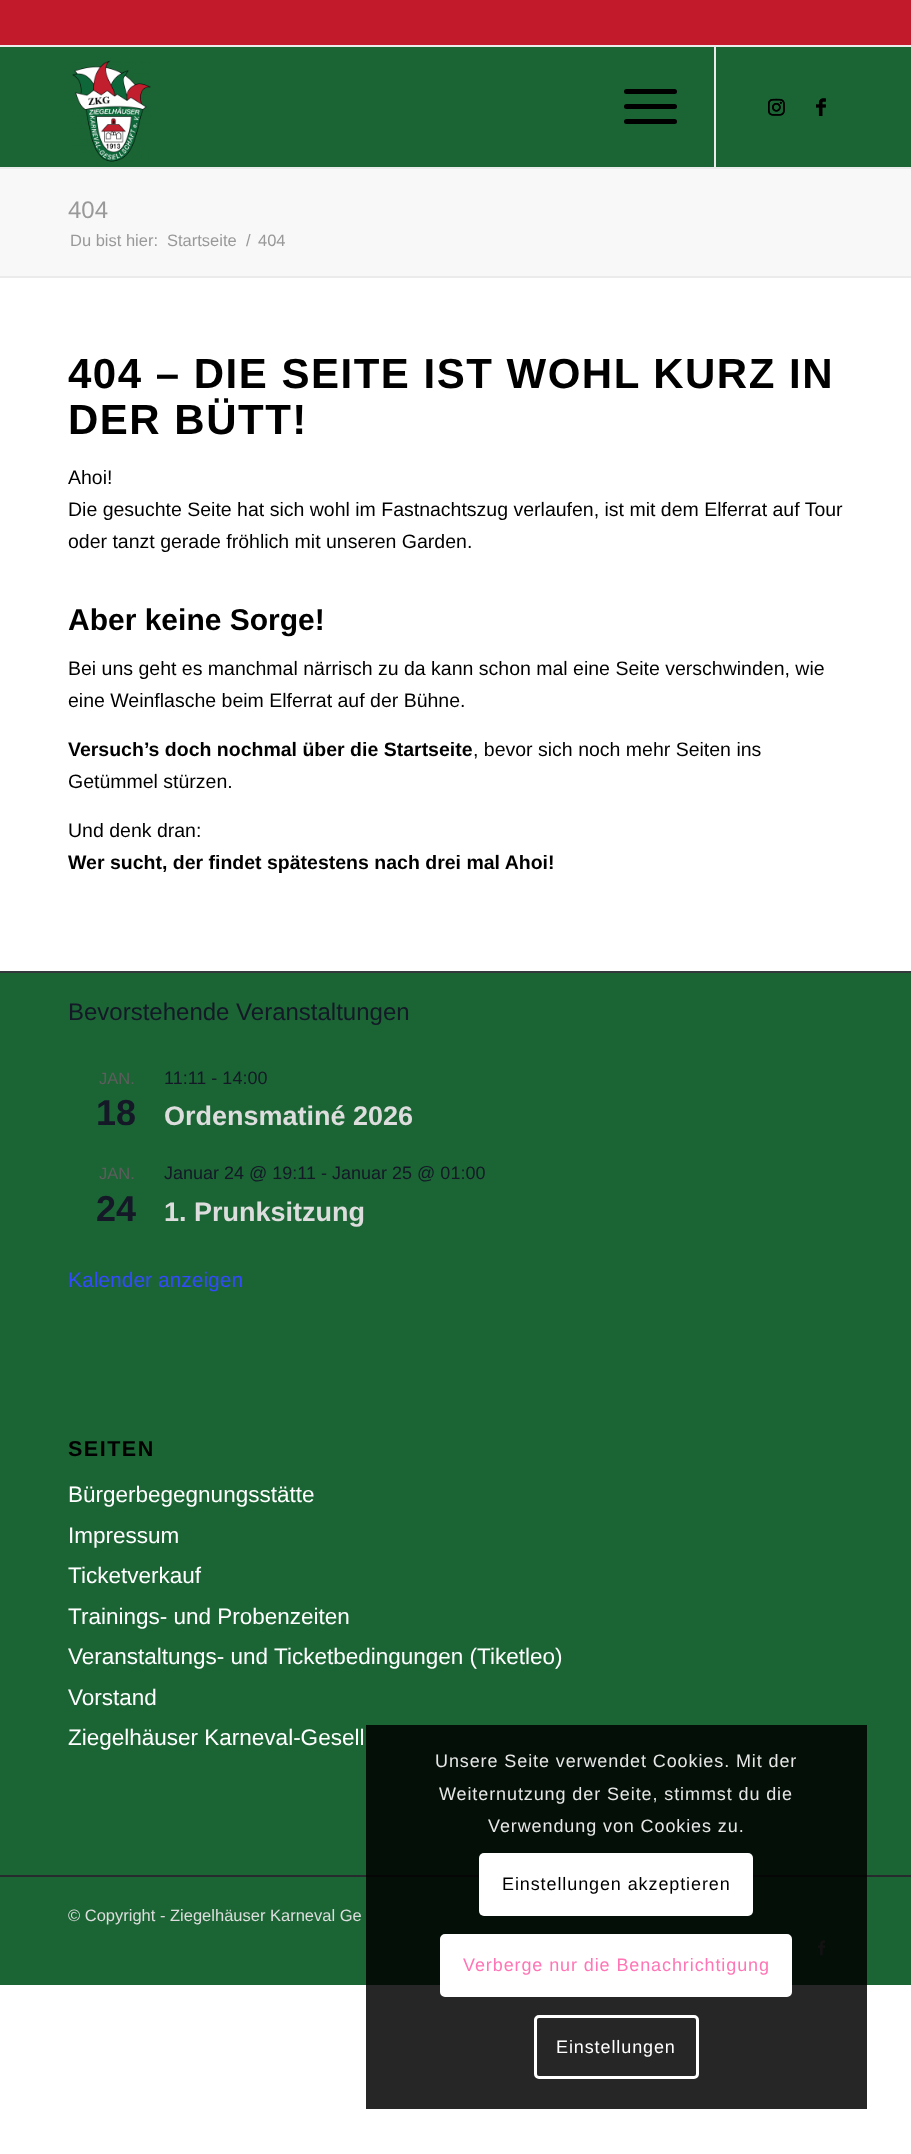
async function draw(canvas) {
  canvas.width = 911
  canvas.height = 2154
  const ctx = canvas.getContext('2d')
  ctx.miterLimit = 4
  ctx.fontKerning = 'normal'
  async function loadImage(src) {
    const img = new Image()
    img.src = src
    await img.decode()
    return img
  }

  ctx.fillStyle = '#fff'
  ctx.fillRect(0, 0, 911, 2154)
  ctx.fillStyle = '#c21a2b'
  ctx.fillRect(0, 0, 911, 45)
  ctx.fillStyle = '#ebebeb'
  ctx.fillRect(0, 45, 911, 2)
  ctx.fillStyle = '#1b6535'
  ctx.fillRect(0, 47, 911, 120)
  ctx.fillStyle = '#ebebeb'
  ctx.fillRect(0, 167, 911, 2)
  ctx.drawImage(await loadImage('image0.png'), 72, 60, 79, 102)
  ctx.fillRect(714, 47, 2, 120)
  ctx.fillStyle = '#000'
  ctx.beginPath()
  ctx.roundRect(624, 104, 53, 5, 2.5)
  ctx.fill()
  ctx.beginPath()
  ctx.roundRect(624, 89, 53, 5, 2.5)
  ctx.fill()
  ctx.beginPath()
  ctx.roundRect(624, 119, 53, 5, 2.5)
  ctx.fill()
  ctx.drawImage(await loadImage('image1.png'), 768, 98, 17, 18)
  ctx.drawImage(await loadImage('image2.png'), 816, 98, 10, 18)
  ctx.drawImage(await loadImage('image3.png'), 768, 98, 17, 18)
  ctx.drawImage(await loadImage('image4.png'), 816, 98, 10, 18)
  ctx.fillStyle = '#f8f8f8'
  ctx.fillRect(0, 169, 911, 107)
  ctx.font = '24px Liberation Sans'
  ctx.fillStyle = '#999'
  ctx.fillText('404', 68, 218)
  ctx.font = '16.5px Liberation Sans'
  ctx.fillText('Du bist hier:', 70, 246)
  ctx.fillText('Startseite', 167, 246)
  ctx.fillText('/', 246, 246)
  ctx.fillText('404', 258, 246)
  ctx.fillStyle = '#ebebeb'
  ctx.fillRect(0, 276, 911, 2)
  ctx.letterSpacing = '1.5px'
  ctx.font = 'bold 42px Liberation Sans'
  ctx.fillStyle = '#000'
  ctx.fillText('404 – DIE SEITE IST WOHL KURZ IN', 68, 388)
  ctx.fillText('DER BÜTT!', 68, 434)
  ctx.letterSpacing = '0px'
  ctx.font = '19.5px Liberation Sans'
  ctx.fillText('Ahoi!', 68, 484)
  ctx.fillText('Die gesuchte Seite hat sich wohl im Fastnachtszug verlaufen, ist mit dem Elferrat auf Tour', 68, 516)
  ctx.fillText('oder tanzt gerade fröhlich mit unseren Garden.', 68, 548)
  ctx.font = 'bold 30px Liberation Sans'
  ctx.fillText('Aber keine Sorge!', 68, 630)
  ctx.font = '19.5px Liberation Sans'
  ctx.fillText('Bei uns geht es manchmal närrisch zu da kann schon mal eine Seite verschwinden, wie', 68, 675)
  ctx.fillText('eine Weinflasche beim Elferrat auf der Bühne.', 68, 707)
  ctx.font = 'bold 19.5px Liberation Sans'
  ctx.fillText('Versuch’s doch nochmal über die Startseite', 68, 756)
  ctx.font = '19.5px Liberation Sans'
  ctx.fillText(', bevor sich noch mehr Seiten ins', 473, 756)
  ctx.fillText('Getümmel stürzen.', 68, 788)
  ctx.fillText('Und denk dran:', 68, 837)
  ctx.font = 'bold 19.5px Liberation Sans'
  ctx.fillText('Wer sucht, der findet spätestens nach drei mal Ahoi!', 68, 869)
  ctx.fillStyle = '#1b6535'
  ctx.fillRect(0, 973, 911, 902)
  ctx.fillStyle = '#35383c'
  ctx.fillRect(0, 971, 911, 2)
  ctx.font = '24px Liberation Sans'
  ctx.fillStyle = '#141827'
  ctx.fillText('Bevorstehende Veranstaltungen', 68, 1020)
  ctx.font = '16.5px Liberation Sans'
  ctx.fillStyle = '#5d5d5d'
  ctx.fillText('JAN.', 99, 1084)
  ctx.font = 'bold 36px Liberation Sans'
  ctx.fillStyle = '#141827'
  ctx.fillText('18', 96, 1125)
  ctx.font = '18px Liberation Sans'
  ctx.fillText('11:11 - 14:00', 164, 1084)
  ctx.font = 'bold 27px Liberation Sans'
  ctx.fillStyle = '#ddd'
  ctx.fillText('Ordensmatiné 2026', 164, 1125)
  ctx.font = '16.5px Liberation Sans'
  ctx.fillStyle = '#5d5d5d'
  ctx.fillText('JAN.', 99, 1179)
  ctx.font = 'bold 36px Liberation Sans'
  ctx.fillStyle = '#141827'
  ctx.fillText('24', 96, 1221)
  ctx.font = '18px Liberation Sans'
  ctx.fillText('Januar 24 @ 19:11 - Januar 25 @ 01:00', 164, 1179)
  ctx.font = 'bold 27px Liberation Sans'
  ctx.fillStyle = '#ddd'
  ctx.fillText('1. Prunksitzung', 164, 1221)
  ctx.font = '21px Liberation Sans'
  ctx.fillStyle = '#334aff'
  ctx.fillText('Kalender anzeigen', 68, 1287)
  ctx.letterSpacing = '1.5px'
  ctx.font = 'bold 21.5px Liberation Sans'
  ctx.fillStyle = '#000'
  ctx.fillText('SEITEN', 68, 1456)
  ctx.letterSpacing = '0px'
  ctx.font = '22.5px Liberation Sans'
  ctx.fillStyle = '#fff'
  ctx.fillText('Bürgerbegegnungsstätte', 68, 1502)
  ctx.fillText('Impressum', 68, 1543)
  ctx.fillText('Ticketverkauf', 68, 1583)
  ctx.fillText('Trainings- und Probenzeiten', 68, 1624)
  ctx.fillText('Veranstaltungs- und Ticketbedingungen (Tiketleo)', 68, 1664)
  ctx.fillText('Vorstand', 68, 1705)
  ctx.fillText('Ziegelhäuser Karneval-Gesell', 68, 1745)
  ctx.fillStyle = '#1b6535'
  ctx.fillRect(0, 1877, 911, 108)
  ctx.fillStyle = '#282b2e'
  ctx.fillRect(0, 1875, 911, 2)
  ctx.font = '16.5px Liberation Sans'
  ctx.fillStyle = '#ddd'
  ctx.fillText('© Copyright - Ziegelhäuser Karneval Ge', 68, 1921)
  ctx.drawImage(await loadImage('image5.png'), 818, 1940, 7, 16)
  ctx.fillStyle = '#000000d9'
  ctx.fillRect(366, 1725, 501, 384)
  ctx.letterSpacing = '0.9px'
  ctx.font = '18px Liberation Sans'
  ctx.fillStyle = '#e6e7e6'
  ctx.fillText('Unsere Seite verwendet Cookies. Mit der', 435, 1767)
  ctx.fillText('Weiternutzung der Seite, stimmst du die', 439, 1800)
  ctx.fillText('Verwendung von Cookies zu.', 488, 1832)
  ctx.fillStyle = '#fff'
  ctx.beginPath()
  ctx.roundRect(479, 1853, 274, 63, 5)
  ctx.fill()
  ctx.fillStyle = '#000'
  ctx.fillText('Einstellungen akzeptieren', 502, 1890)
  ctx.fillStyle = '#fff'
  ctx.beginPath()
  ctx.roundRect(441.5, 1935.5, 349, 60, 3.5)
  ctx.fill()
  ctx.strokeStyle = '#fff'
  ctx.lineWidth = 3
  ctx.stroke()
  ctx.fillStyle = '#ff75b5'
  ctx.fillText('Verberge nur die Benachrichtigung', 463, 1971)
  ctx.beginPath()
  ctx.roundRect(535.5, 2016.5, 162, 61, 3.5)
  ctx.stroke()
  ctx.fillStyle = '#fff'
  ctx.fillText('Einstellungen', 556, 2053)
}

draw(document.querySelector('canvas'))
